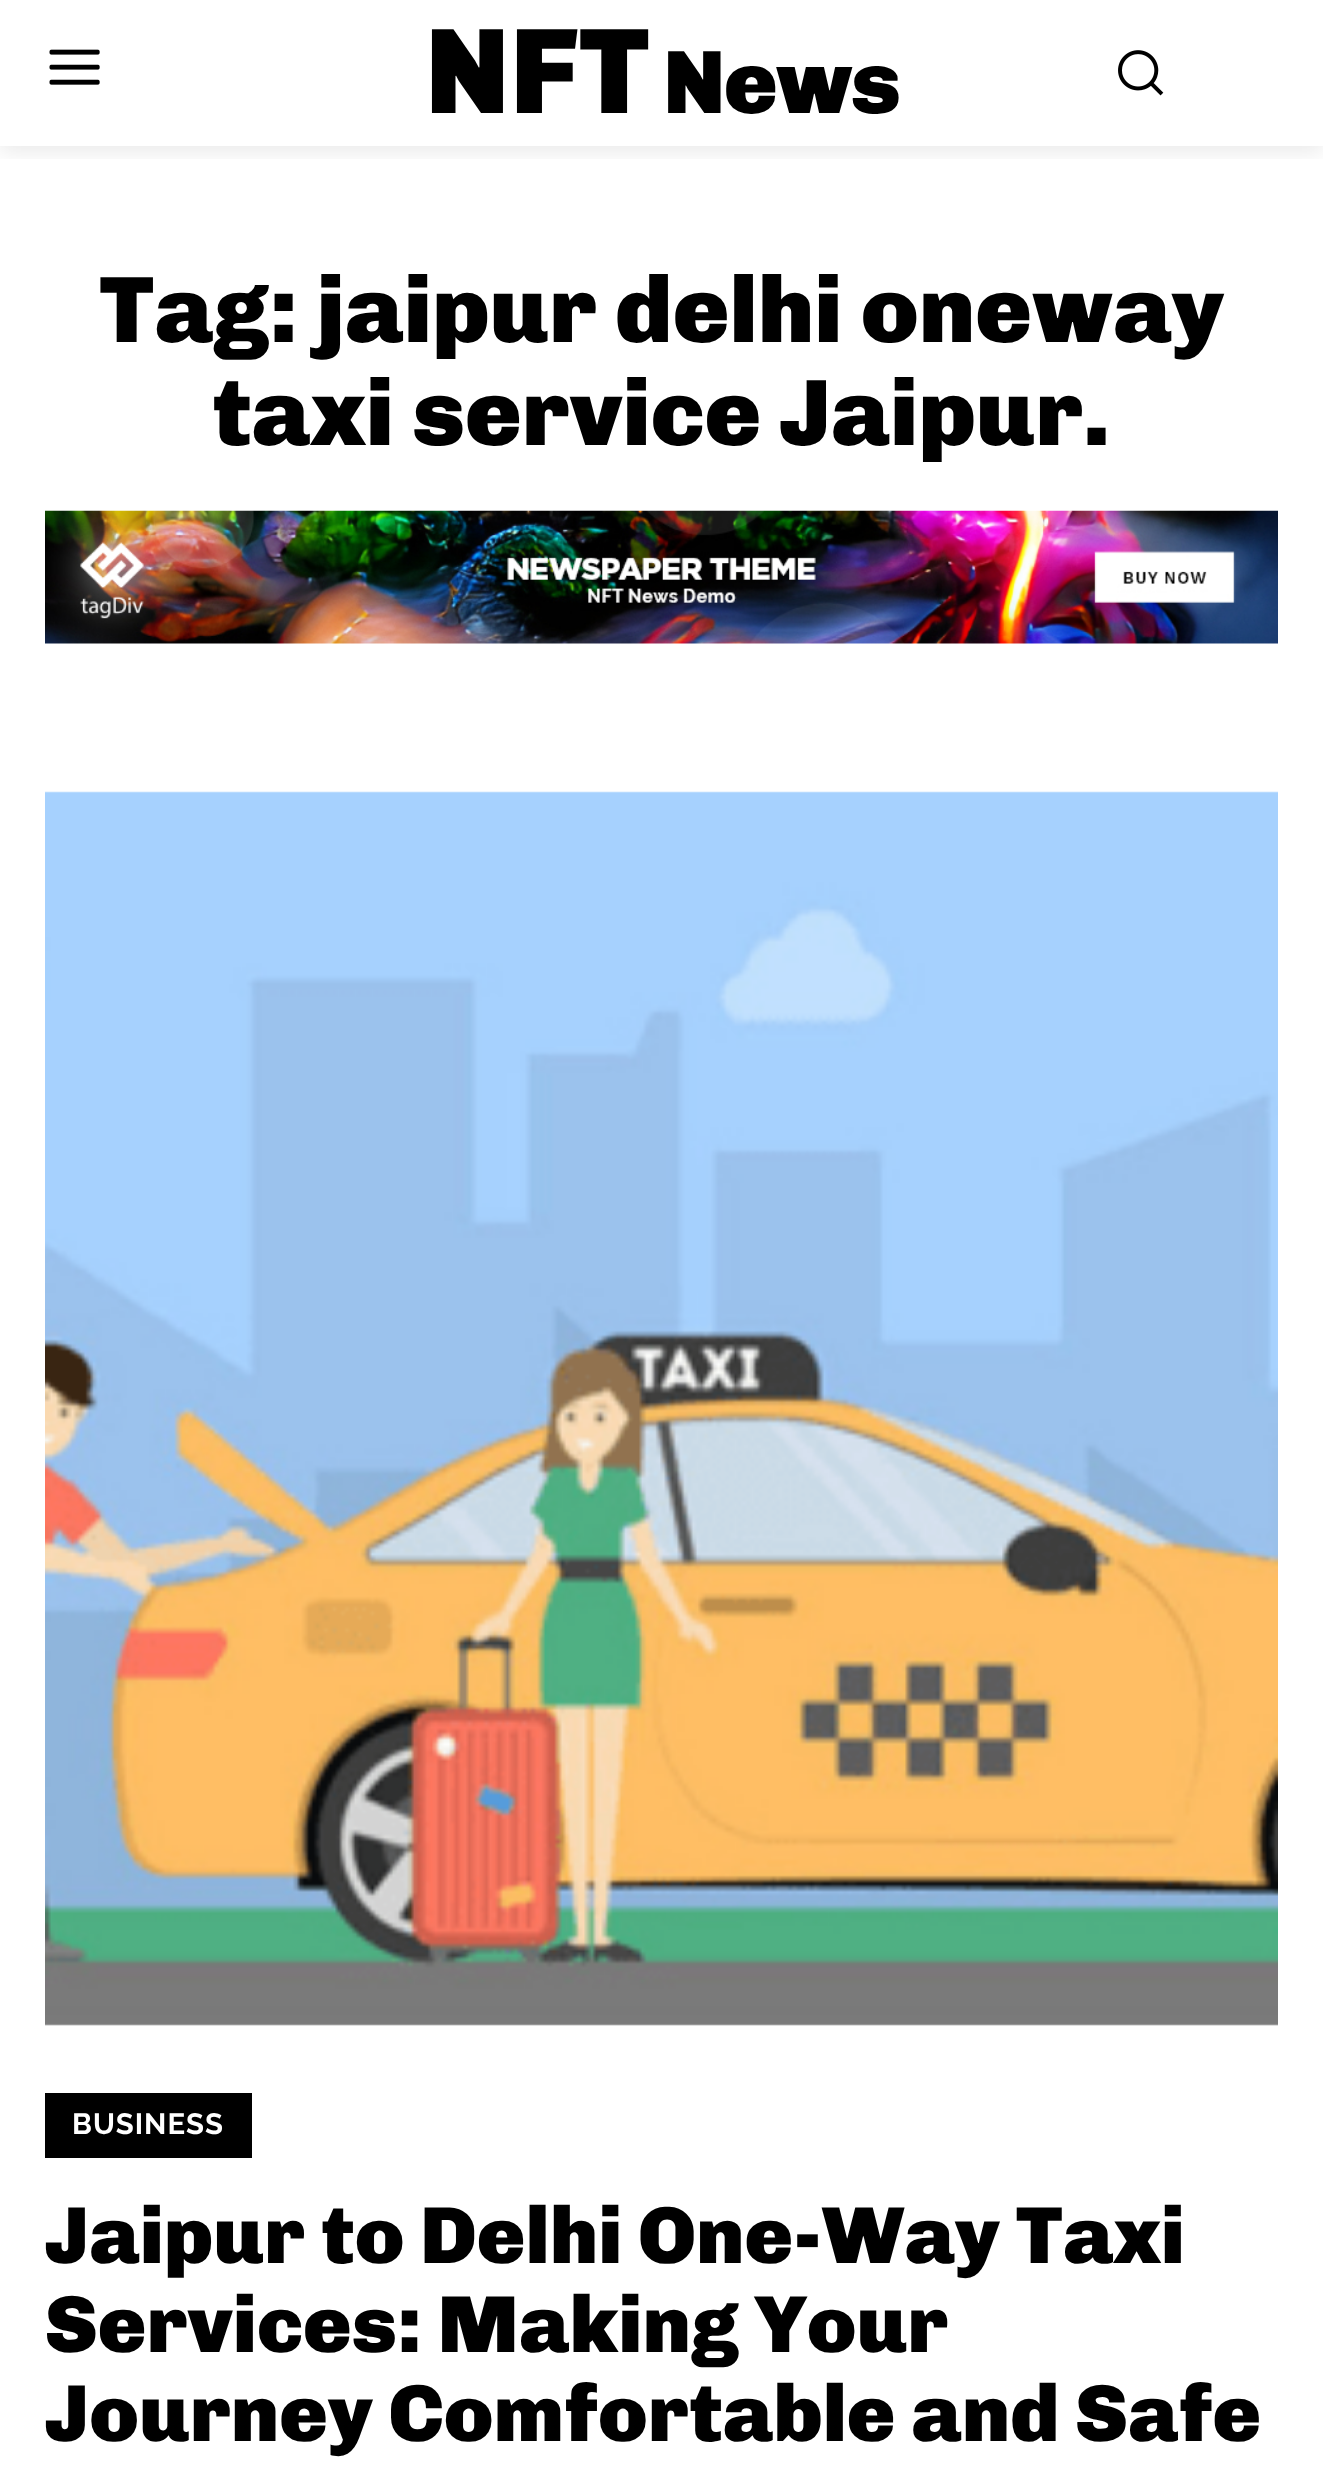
async function draw(canvas) {
  canvas.width = 1323
  canvas.height = 2465
  const ctx = canvas.getContext('2d')
  ctx.miterLimit = 4
  ctx.fontKerning = 'normal'
  async function loadImage(src) {
    const img = new Image()
    img.src = src
    await img.decode()
    return img
  }

  ctx.fillStyle = '#fff'
  ctx.fillRect(0, 0, 1323, 2465)
  ctx.drawImage(await loadImage('image0.png'), 49, 49, 51, 36)
  ctx.drawImage(await loadImage('image1.png'), 1118, 50, 46, 46)
  ctx.save()
  ctx.beginPath()
  ctx.rect(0, 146, 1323, 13)
  ctx.clip()
  ctx.fillStyle = '#00000017'
  ctx.filter = 'blur(11px)'
  ctx.beginPath()
  ctx.rect(0, 5, 1323, 146)
  ctx.fill()
  ctx.filter = 'none'
  ctx.restore()
  ctx.font = '900 122px Chivo'
  ctx.fillStyle = '#000'
  ctx.fillText('NFT', 425, 113)
  ctx.letterSpacing = '-2px'
  ctx.font = '900 90px Chivo'
  ctx.fillText('News', 663, 113)
  ctx.letterSpacing = '0px'
  ctx.font = '900 94.5px Chivo'
  ctx.fillText('Tag: jaipur delhi oneway', 99, 342)
  ctx.fillText('taxi service Jaipur.', 212, 445)
  ctx.drawImage(await loadImage('image2.png'), 45, 510, 1233, 134)
  ctx.drawImage(await loadImage('image3.png'), 45, 791, 1233, 1235)
  ctx.fillRect(45, 2093, 207, 65)
  ctx.letterSpacing = '1px'
  ctx.font = 'bold 29.25px Raleway'
  ctx.fillStyle = '#fff'
  ctx.fillText('BUSINESS', 72, 2134)
  ctx.letterSpacing = '0px'
  ctx.font = '900 81px Chivo'
  ctx.fillStyle = '#000'
  ctx.fillText('Jaipur to Delhi One-Way Taxi', 45, 2263)
  ctx.fillText('Services: Making Your', 45, 2352)
  ctx.fillText('Journey Comfortable and Safe', 45, 2441)
}

draw(document.querySelector('canvas'))
